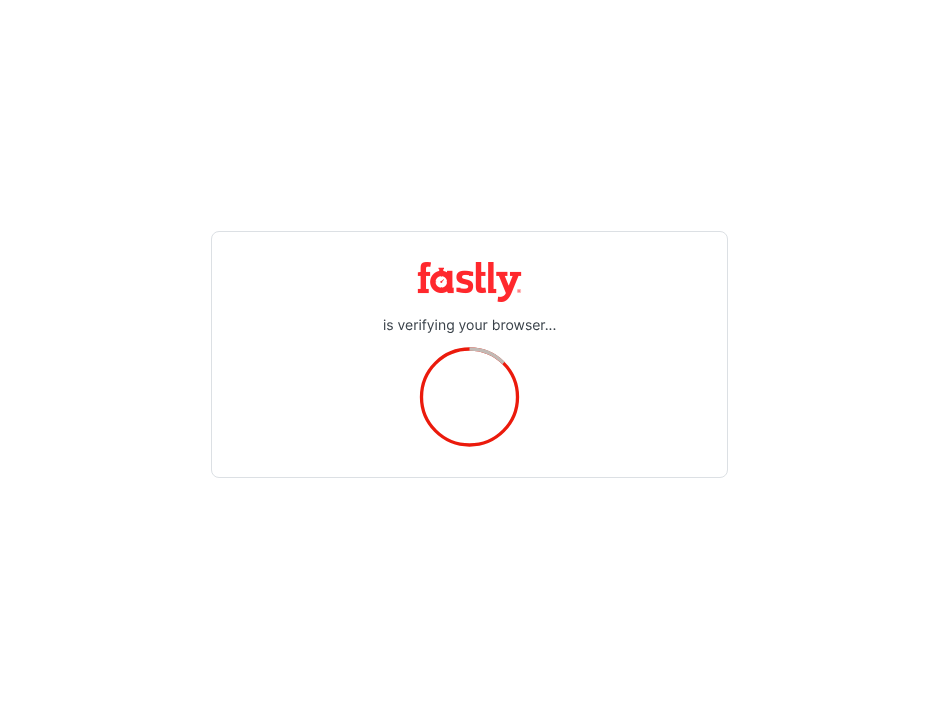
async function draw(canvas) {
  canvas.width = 939
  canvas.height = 708
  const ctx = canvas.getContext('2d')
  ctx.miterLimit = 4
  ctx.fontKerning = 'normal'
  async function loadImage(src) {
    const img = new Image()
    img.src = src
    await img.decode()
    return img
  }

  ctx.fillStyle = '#fff'
  ctx.fillRect(0, 0, 939, 708)
  ctx.beginPath()
  ctx.roundRect(211.5, 231.5, 516, 246, 7.5)
  ctx.strokeStyle = '#dce0e4'
  ctx.stroke()
  ctx.drawImage(await loadImage('image0.png'), 417, 262, 105, 40)
  ctx.font = '14px Inter'
  ctx.fillStyle = '#3a424a'
  ctx.fillText('is verifying your browser...', 383, 330)
  ctx.beginPath()
  ctx.moveTo(421.5, 397)
  ctx.bezierCurveTo(421.5, 370.5, 443, 349, 469.5, 349)
  ctx.bezierCurveTo(496, 349, 517.5, 370.5, 517.5, 397)
  ctx.bezierCurveTo(517.5, 423.5, 496, 445, 469.5, 445)
  ctx.bezierCurveTo(443, 445, 421.5, 423.5, 421.5, 397)
  ctx.closePath()
  ctx.strokeStyle = '#eb1a0c'
  ctx.lineWidth = 3.3
  ctx.stroke()
  ctx.beginPath()
  ctx.moveTo(503.5, 363)
  ctx.bezierCurveTo(494.5, 354, 482, 349, 469.5, 349)
  ctx.strokeStyle = '#c2bab5'
  ctx.stroke()
}

draw(document.querySelector('canvas'))
